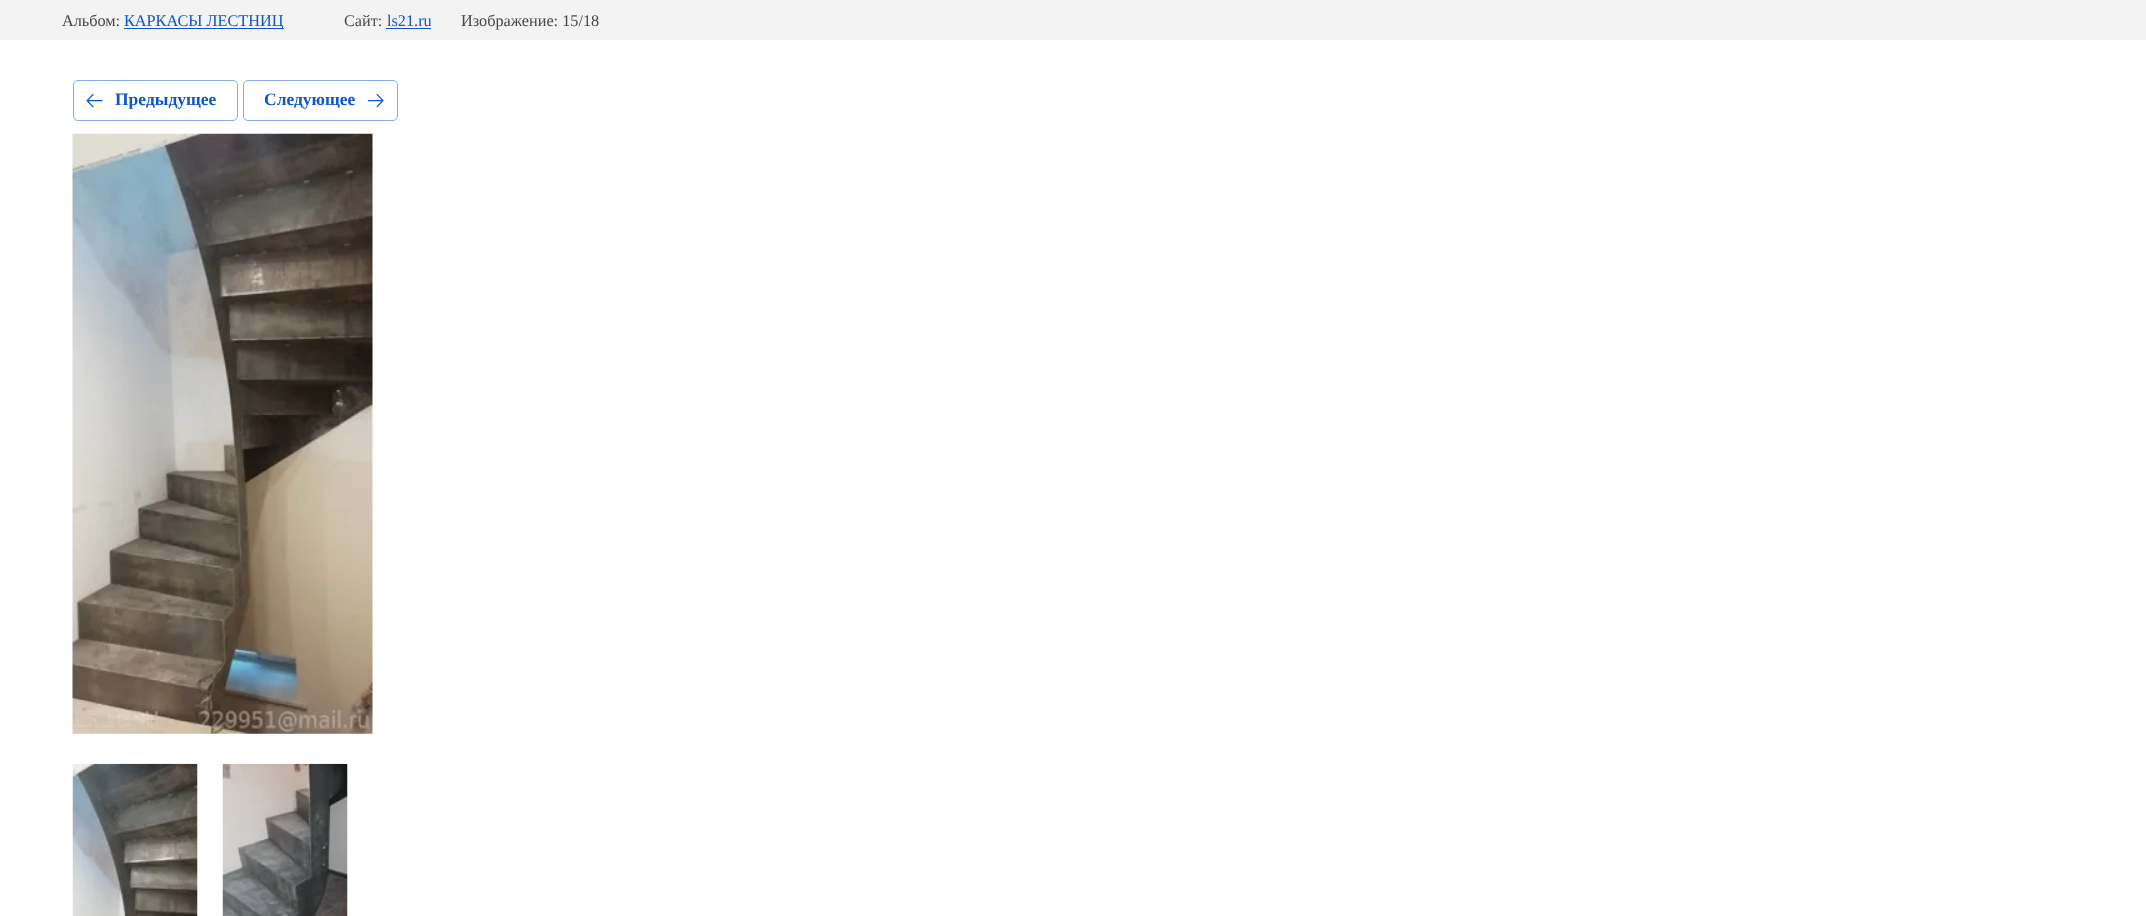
async function draw(canvas) {
  canvas.width = 2146
  canvas.height = 916
  const ctx = canvas.getContext('2d')
  ctx.miterLimit = 4
  ctx.fontKerning = 'normal'
  async function loadImage(src) {
    const img = new Image()
    img.src = src
    await img.decode()
    return img
  }

  ctx.fillStyle = '#fff'
  ctx.fillRect(0, 0, 2146, 916)
  ctx.fillStyle = '#f3f3f3'
  ctx.fillRect(0, 0, 2146, 40)
  ctx.font = '16.25px Liberation Serif'
  ctx.fillStyle = '#484848'
  ctx.fillText('Альбом:', 62, 26)
  ctx.fillStyle = '#15c'
  ctx.fillRect(124, 28, 160, 1)
  ctx.fillText('КАРКАСЫ ЛЕСТНИЦ', 124, 26)
  ctx.fillStyle = '#484848'
  ctx.fillText('Сайт:', 344, 26)
  ctx.fillStyle = '#15c'
  ctx.fillText('ls21.ru', 387, 26)
  ctx.fillRect(386, 28, 45, 1)
  ctx.fillStyle = '#484848'
  ctx.fillText('Изображение: 15/18', 461, 26)
  ctx.beginPath()
  ctx.roundRect(73.5, 80.5, 164, 40, 4.5)
  ctx.strokeStyle = '#88aae6'
  ctx.stroke()
  ctx.drawImage(await loadImage('image0.png'), 86, 94, 17, 14)
  ctx.font = 'bold 17.5px Liberation Serif'
  ctx.fillStyle = '#15c'
  ctx.fillText('Предыдущее', 115, 105)
  ctx.beginPath()
  ctx.roundRect(243.5, 80.5, 154, 40, 4.5)
  ctx.stroke()
  ctx.fillText('Следующее', 264, 105)
  ctx.drawImage(await loadImage('image1.png'), 368, 94, 16, 14)
  ctx.drawImage(await loadImage('image2.png'), 72, 133, 301, 601)
  ctx.drawImage(await loadImage('image3.png'), 72, 763, 126, 153)
  ctx.drawImage(await loadImage('image4.png'), 222, 763, 126, 153)
}

draw(document.querySelector('canvas'))
